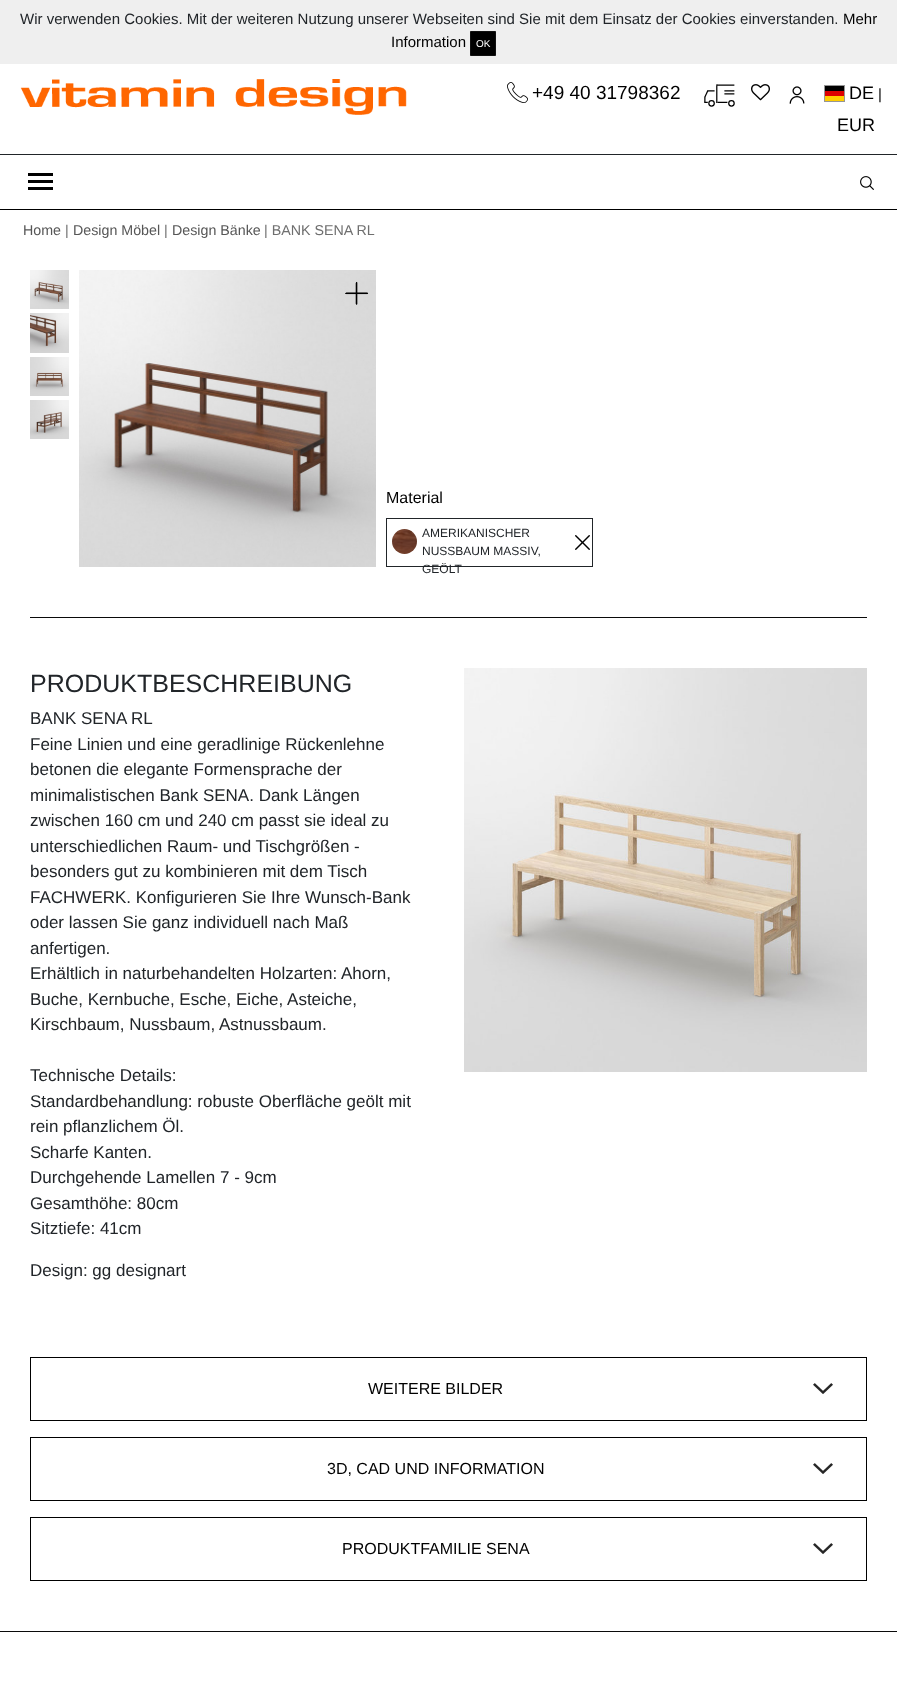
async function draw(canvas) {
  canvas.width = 897
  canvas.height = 1690
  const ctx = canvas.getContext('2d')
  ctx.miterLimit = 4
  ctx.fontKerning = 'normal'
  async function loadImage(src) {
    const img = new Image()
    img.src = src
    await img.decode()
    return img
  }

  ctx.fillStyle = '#fff'
  ctx.fillRect(0, 0, 897, 1690)
  ctx.fillStyle = '#efefef'
  ctx.fillRect(0, 0, 897, 64)
  ctx.font = '15px Liberation Sans'
  ctx.fillStyle = '#212529'
  ctx.fillText('Wir verwenden Cookies. Mit der weiteren Nutzung unserer Webseiten sind Sie mit dem Einsatz der Cookies einverstanden.', 20, 24)
  ctx.fillStyle = '#000'
  ctx.fillText('Mehr', 843, 24)
  ctx.fillText('Information', 391, 47)
  ctx.beginPath()
  ctx.rect(470.5, 31.5, 25, 24)
  ctx.fill()
  ctx.strokeStyle = '#111'
  ctx.stroke()
  ctx.font = '10px Liberation Sans'
  ctx.fillStyle = '#fff'
  ctx.fillText('OK', 476, 47)
  ctx.drawImage(await loadImage('image0.png'), 20, 79, 387, 36)
  ctx.drawImage(await loadImage('image1.png'), 507, 82, 21, 21)
  ctx.font = '19px Liberation Sans'
  ctx.fillStyle = '#000'
  ctx.fillText('+49 40 31798362', 532, 99)
  ctx.drawImage(await loadImage('image2.png'), 704, 84, 31, 23)
  ctx.drawImage(await loadImage('image3.png'), 751, 84, 19, 17)
  ctx.drawImage(await loadImage('image4.png'), 789, 86, 16, 18)
  ctx.fillStyle = '#ffce00'
  ctx.fillRect(824, 96, 20, 5)
  ctx.fillStyle = '#000'
  ctx.fillRect(824, 86, 20, 5)
  ctx.fillStyle = '#d00'
  ctx.fillRect(824, 91, 20, 5)
  ctx.strokeStyle = '#969696'
  ctx.strokeRect(824.5, 85.5, 20, 16)
  ctx.font = '18px Liberation Sans'
  ctx.fillStyle = '#000'
  ctx.fillText('DE', 849, 99)
  ctx.font = '15px Liberation Sans'
  ctx.fillText('|', 878, 99)
  ctx.font = '18px Liberation Sans'
  ctx.fillText('EUR', 837, 131)
  ctx.fillStyle = '#212529'
  ctx.fillRect(0, 154, 897, 1)
  ctx.fillStyle = '#000'
  ctx.fillRect(0, 209, 897, 1)
  ctx.fillRect(28, 173, 25, 3)
  ctx.fillRect(28, 180, 25, 3)
  ctx.fillRect(28, 187, 25, 3)
  ctx.drawImage(await loadImage('image5.png'), 860, 176, 14, 14)
  ctx.font = '14.25px Liberation Sans'
  ctx.fillStyle = '#565656'
  ctx.fillText('Home', 23, 235)
  ctx.fillStyle = '#6f6f6f'
  ctx.fillText('|', 65, 235)
  ctx.fillStyle = '#565656'
  ctx.fillText('Design Möbel', 73, 235)
  ctx.fillStyle = '#6f6f6f'
  ctx.fillText('|', 164, 235)
  ctx.fillStyle = '#565656'
  ctx.fillText('Design Bänke', 172, 235)
  ctx.fillStyle = '#6f6f6f'
  ctx.fillText('| BANK SENA RL', 264, 235)
  ctx.drawImage(await loadImage('image6.png'), 30, 270, 39, 39)
  ctx.drawImage(await loadImage('image7.png'), 30, 313, 39, 40)
  ctx.drawImage(await loadImage('image8.png'), 30, 357, 39, 39)
  ctx.drawImage(await loadImage('image9.png'), 30, 400, 39, 39)
  ctx.drawImage(await loadImage('image10.png'), 79, 270, 297, 297)
  ctx.drawImage(await loadImage('image11.png'), 345, 281, 24, 24)
  ctx.font = '16px Liberation Sans'
  ctx.fillStyle = '#000'
  ctx.fillText('Material', 386, 503)
  ctx.strokeStyle = '#212529'
  ctx.strokeRect(386.5, 518.5, 206, 48)
  ctx.drawImage(await loadImage('image12.png'), 392, 529, 25, 25)
  ctx.drawImage(await loadImage('image13.png'), 575, 535, 15, 15)
  ctx.font = '12px Liberation Sans'
  ctx.fillStyle = '#212529'
  ctx.fillText('AMERIKANISCHER', 422, 537)
  ctx.fillText('NUSSBAUM MASSIV,', 422, 555)
  ctx.fillText('GEÖLT', 422, 573)
  ctx.fillStyle = '#0a0a0a'
  ctx.fillRect(30, 617, 837, 1)
  ctx.font = '25px Liberation Sans'
  ctx.fillStyle = '#212529'
  ctx.fillText('PRODUKTBESCHREIBUNG', 30, 692)
  ctx.font = '17px Liberation Sans'
  ctx.fillText('BANK SENA RL', 30, 724)
  ctx.fillText('Feine Linien und eine geradlinige Rückenlehne', 30, 750)
  ctx.fillText('betonen die elegante Formensprache der', 30, 775)
  ctx.fillText('minimalistischen Bank SENA. Dank Längen', 30, 801)
  ctx.fillText('zwischen 160 cm und 240 cm passt sie ideal zu', 30, 826)
  ctx.fillText('unterschiedlichen Raum- und Tischgrößen -', 30, 852)
  ctx.fillText('besonders gut zu kombinieren mit dem Tisch', 30, 877)
  ctx.fillText('FACHWERK. Konfigurieren Sie Ihre Wunsch-Bank', 30, 903)
  ctx.fillText('oder lassen Sie ganz individuell nach Maß', 30, 928)
  ctx.fillText('anfertigen.', 30, 954)
  ctx.fillText('Erhältlich in naturbehandelten Holzarten: Ahorn,', 30, 979)
  ctx.fillText('Buche, Kernbuche, Esche, Eiche, Asteiche,', 30, 1005)
  ctx.fillText('Kirschbaum, Nussbaum, Astnussbaum.', 30, 1030)
  ctx.fillText('Technische Details:', 30, 1081)
  ctx.fillText('Standardbehandlung: robuste Oberfläche geölt mit', 30, 1107)
  ctx.fillText('rein pflanzlichem Öl.', 30, 1132)
  ctx.fillText('Scharfe Kanten.', 30, 1158)
  ctx.fillText('Durchgehende Lamellen 7 - 9cm', 30, 1183)
  ctx.fillText('Gesamthöhe: 80cm', 30, 1209)
  ctx.fillText('Sitztiefe: 41cm', 30, 1234)
  ctx.fillText('Design: gg designart', 30, 1276)
  ctx.drawImage(await loadImage('image14.png'), 464, 668, 403, 404)
  ctx.strokeStyle = '#000'
  ctx.strokeRect(30.5, 1357.5, 836, 63)
  ctx.drawImage(await loadImage('image15.png'), 813, 1383, 20, 11)
  ctx.font = '16px Liberation Sans'
  ctx.fillStyle = '#000'
  ctx.fillText('WEITERE BILDER', 368, 1394)
  ctx.strokeRect(30.5, 1437.5, 836, 63)
  ctx.drawImage(await loadImage('image15.png'), 813, 1463, 20, 11)
  ctx.fillText('3D, CAD UND INFORMATION', 327, 1474)
  ctx.strokeRect(30.5, 1517.5, 836, 63)
  ctx.drawImage(await loadImage('image15.png'), 813, 1543, 20, 11)
  ctx.fillText('PRODUKTFAMILIE SENA', 342, 1554)
  ctx.fillStyle = '#0a0a0a'
  ctx.fillRect(0, 1631, 897, 1)
}

draw(document.querySelector('canvas'))
